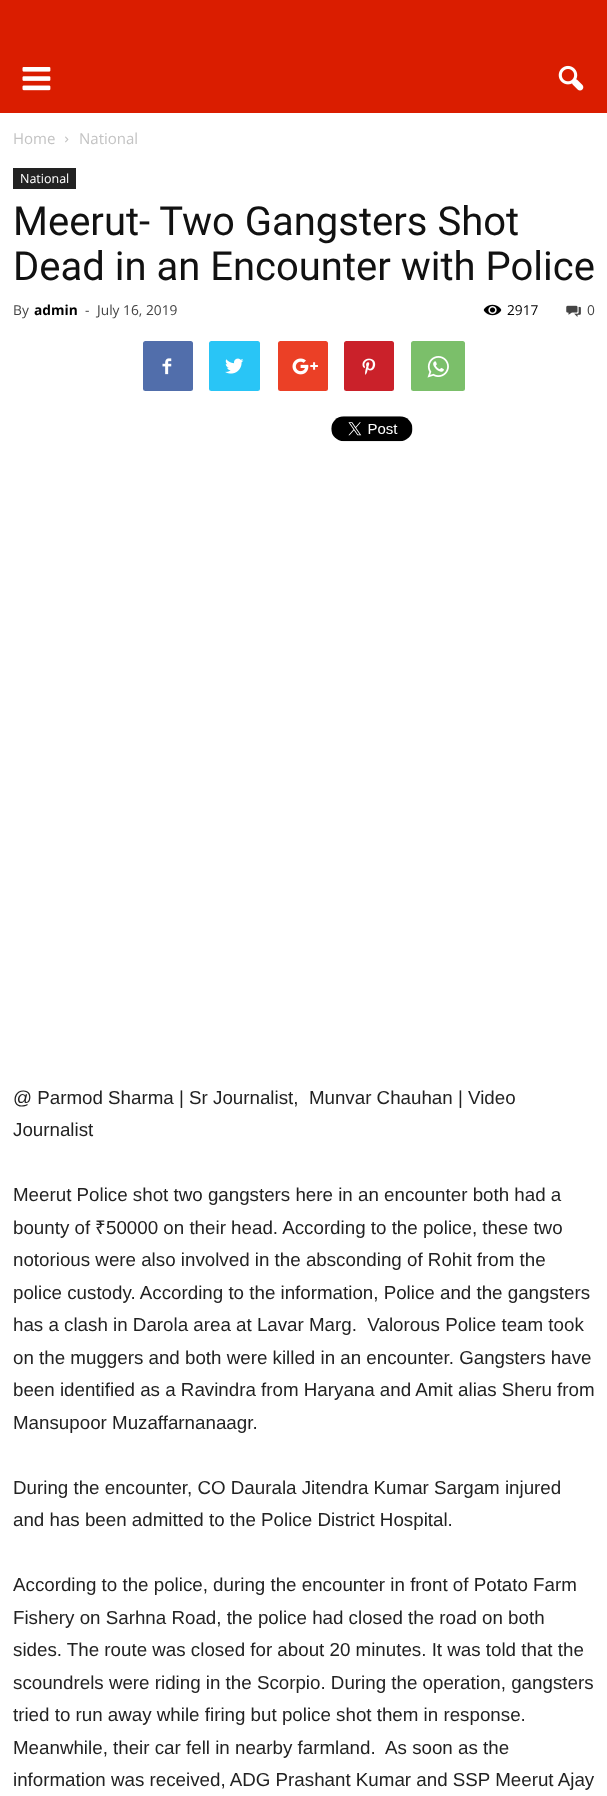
async function draw(canvas) {
  canvas.width = 607
  canvas.height = 1796
  const ctx = canvas.getContext('2d')
  ctx.miterLimit = 4
  ctx.fontKerning = 'normal'
  async function loadImage(src) {
    const img = new Image()
    img.src = src
    await img.decode()
    return img
  }

  ctx.fillStyle = '#fff'
  ctx.fillRect(0, 0, 607, 1796)
  ctx.fillStyle = '#da1d00'
  ctx.fillRect(0, 0, 607, 113)
  ctx.drawImage(await loadImage('image0.png'), 22, 67, 29, 24)
  ctx.drawImage(await loadImage('image1.png'), 558, 65, 26, 26)
  ctx.font = '15px Open Sans'
  ctx.fillStyle = '#c3c3c3'
  ctx.fillText('Home', 13, 144)
  ctx.drawImage(await loadImage('image2.png'), 65, 136, 4, 7)
  ctx.fillText('National', 79, 144)
  ctx.fillStyle = '#222'
  ctx.fillRect(13, 168, 63, 21)
  ctx.font = '12.5px Open Sans'
  ctx.fillStyle = '#fff'
  ctx.fillText('National', 20, 183)
  ctx.font = '40px Roboto'
  ctx.fillStyle = '#111'
  ctx.fillText('Meerut- Two Gangsters Shot', 13, 235)
  ctx.fillText('Dead in an Encounter with Police', 13, 280)
  ctx.font = '13.75px Open Sans'
  ctx.fillStyle = '#444'
  ctx.fillText('By', 13, 315)
  ctx.font = 'bold 13.75px Open Sans'
  ctx.fillStyle = '#000'
  ctx.fillText('admin', 34, 315)
  ctx.font = '13.75px Open Sans'
  ctx.fillStyle = '#444'
  ctx.fillText('-', 85, 315)
  ctx.fillText('July 16, 2019', 97, 315)
  ctx.drawImage(await loadImage('image3.png'), 483, 304, 19, 12)
  ctx.fillStyle = '#000'
  ctx.fillText('2917', 507, 315)
  ctx.drawImage(await loadImage('image4.png'), 566, 305, 15, 12)
  ctx.fillStyle = '#444'
  ctx.fillText('0', 587, 315)
  ctx.fillStyle = '#516eab'
  ctx.beginPath()
  ctx.roundRect(143, 341, 50, 50, 2.5)
  ctx.fill()
  ctx.drawImage(await loadImage('image5.png'), 162, 358, 10, 17)
  ctx.fillStyle = '#29c5f6'
  ctx.beginPath()
  ctx.roundRect(209, 341, 51, 50, 2.5)
  ctx.fill()
  ctx.drawImage(await loadImage('image6.png'), 225, 358, 19, 16)
  ctx.fillStyle = '#eb4026'
  ctx.beginPath()
  ctx.roundRect(278, 341, 50, 50, 2.5)
  ctx.fill()
  ctx.drawImage(await loadImage('image7.png'), 292, 358, 26, 17)
  ctx.fillStyle = '#ca212a'
  ctx.beginPath()
  ctx.roundRect(344, 341, 50, 50, 2.5)
  ctx.fill()
  ctx.drawImage(await loadImage('image8.png'), 362, 358, 14, 17)
  ctx.fillStyle = '#7bbf6a'
  ctx.beginPath()
  ctx.roundRect(411, 341, 54, 50, 2.5)
  ctx.fill()
  ctx.drawImage(await loadImage('image9.png'), 427, 356, 22, 22)
  ctx.drawImage(await loadImage('image10.png'), 331, 416, 82, 26)
  ctx.font = '18.75px Liberation Sans'
  ctx.fillStyle = '#222'
  ctx.fillText('@ Parmod Sharma | Sr Journalist,  Munvar Chauhan | Video', 13, 1104)
  ctx.fillText('Journalist', 13, 1136)
  ctx.fillText('Meerut Police shot two gangsters here in an encounter both had a', 13, 1201)
  ctx.fillText('bounty of', 13, 1234)
  ctx.font = '18.75px Noto Sans'
  ctx.fillText('₹', 95, 1234)
  ctx.font = '18.75px Liberation Sans'
  ctx.fillText('50000 on their head. According to the police, these two', 106, 1234)
  ctx.fillText('notorious were also involved in the absconding of Rohit from the', 13, 1266)
  ctx.fillText('police custody. According to the information, Police and the gangsters', 13, 1299)
  ctx.fillText('has a clash in Darola area at Lavar Marg.  Valorous Police team took', 13, 1331)
  ctx.fillText('on the muggers and both were killed in an encounter. Gangsters have', 13, 1364)
  ctx.fillText('been identified as a Ravindra from Haryana and Amit alias Sheru from', 13, 1396)
  ctx.fillText('Mansupoor Muzaffarnanaagr.', 13, 1429)
  ctx.fillText('During the encounter, CO Daurala Jitendra Kumar Sargam injured', 13, 1494)
  ctx.fillText('and has been admitted to the Police District Hospital.', 13, 1526)
  ctx.fillText('According to the police, during the encounter in front of Potato Farm', 13, 1591)
  ctx.fillText('Fishery on Sarhna Road, the police had closed the road on both', 13, 1624)
  ctx.fillText('sides. The route was closed for about 20 minutes. It was told that the', 13, 1656)
  ctx.fillText('scoundrels were riding in the Scorpio. During the operation, gangsters', 13, 1689)
  ctx.fillText('tried to run away while firing but police shot them in response.', 13, 1721)
  ctx.fillText('Meanwhile, their car fell in nearby farmland.  As soon as the', 13, 1754)
  ctx.fillText('information was received, ADG Prashant Kumar and SSP Meerut Ajay', 13, 1786)
}

draw(document.querySelector('canvas'))
